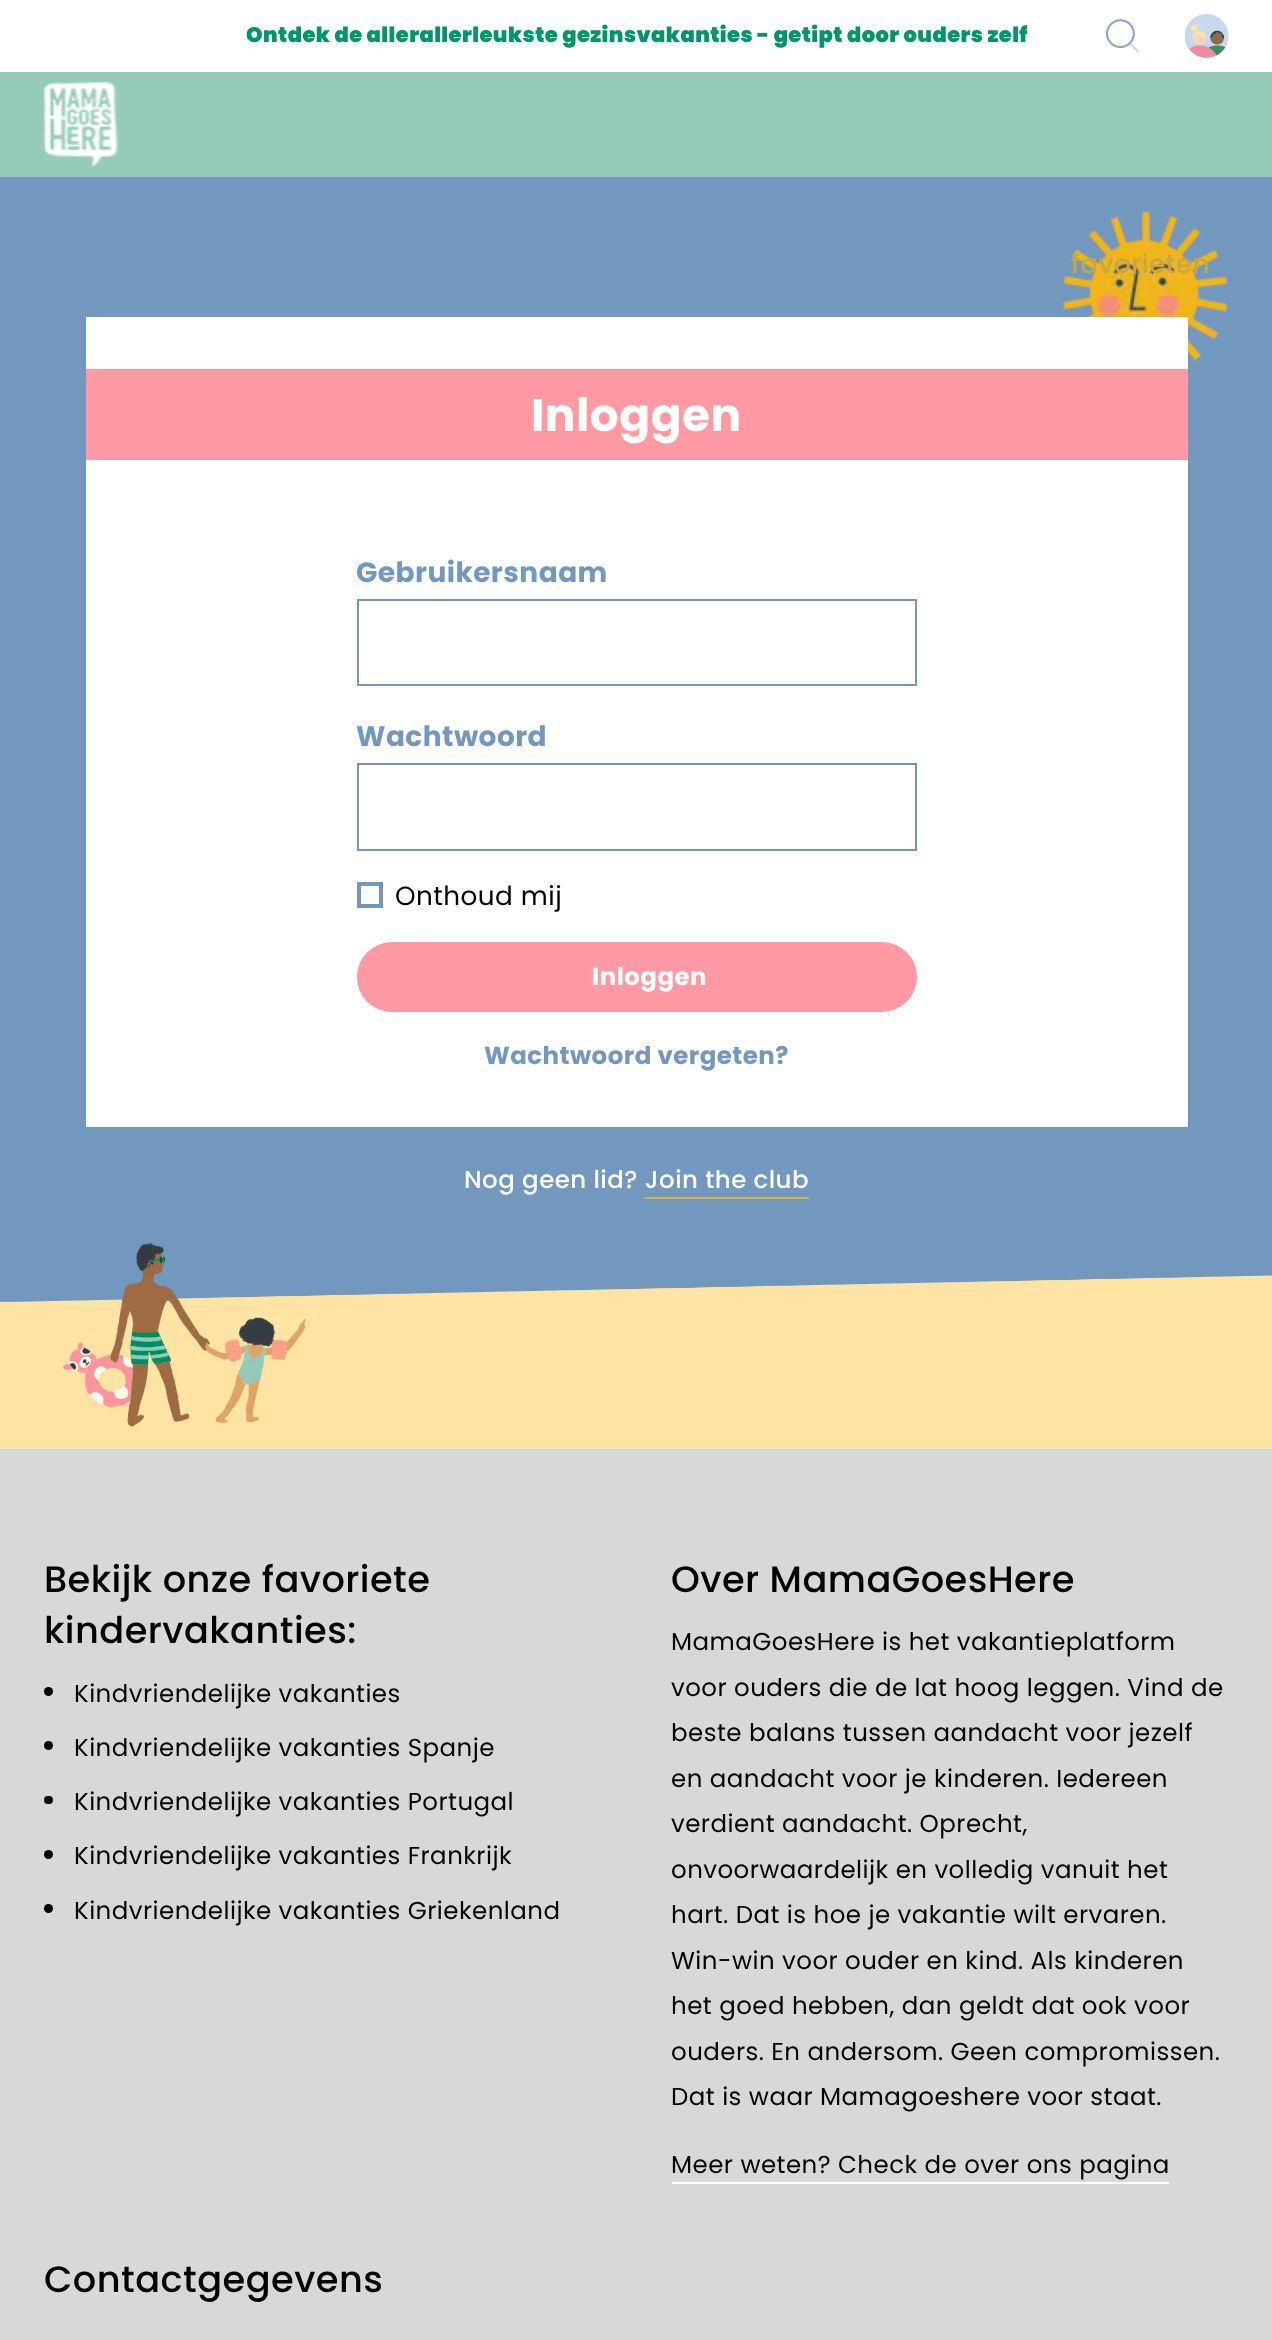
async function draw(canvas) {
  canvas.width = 1272
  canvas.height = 2340
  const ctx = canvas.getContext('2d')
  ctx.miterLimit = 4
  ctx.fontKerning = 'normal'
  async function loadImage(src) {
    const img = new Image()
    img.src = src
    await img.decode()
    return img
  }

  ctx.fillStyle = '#7398c0'
  ctx.fillRect(0, 0, 1272, 2340)
  ctx.fillStyle = '#fff'
  ctx.fillRect(0, 0, 1272, 72)
  ctx.letterSpacing = '0.45px'
  ctx.font = '900 21px Poppins'
  ctx.fillStyle = '#00956b'
  ctx.fillText('Ontdek de allerallerleukste gezinsvakanties - getipt door ouders zelf', 246, 42)
  ctx.drawImage(await loadImage('image0.png'), 1106, 19, 34, 34)
  ctx.drawImage(await loadImage('image1.png'), 1185, 14, 44, 44)
  ctx.drawImage(await loadImage('image3.png'), 1062, 211, 166, 150)
  ctx.font = '500 26.25px Poppins'
  ctx.fillStyle = '#c7a744'
  ctx.fillText('favorieten', 1071, 273)
  ctx.fillStyle = '#95cbbb'
  ctx.fillRect(0, 72, 1272, 105)
  ctx.drawImage(await loadImage('image2.png'), 43, 81, 76, 86)
  ctx.fillStyle = '#fff'
  ctx.fillRect(86, 317, 1102, 810)
  ctx.fillStyle = '#ff99a4'
  ctx.fillRect(86, 369, 1102, 91)
  ctx.font = 'bold 45.5px Poppins'
  ctx.fillStyle = '#fff'
  ctx.fillText('Inloggen', 531, 431)
  ctx.font = 'bold 28px Poppins'
  ctx.fillStyle = '#7398c0'
  ctx.fillText('Gebruikersnaam', 356, 582)
  ctx.strokeStyle = '#7398c0'
  ctx.lineWidth = 2
  ctx.strokeRect(358, 600, 558, 85)
  ctx.fillText('Wachtwoord', 356, 746)
  ctx.strokeRect(358, 764, 558, 86)
  ctx.lineWidth = 4
  ctx.strokeRect(359, 884, 22, 22)
  ctx.font = '26.25px Poppins'
  ctx.fillStyle = '#020202'
  ctx.fillText('Onthoud mij', 395, 905)
  ctx.fillStyle = '#ff99a4'
  ctx.beginPath()
  ctx.roundRect(357, 942, 560, 70, 35)
  ctx.fill()
  ctx.font = 'bold 24.5px Poppins'
  ctx.fillStyle = '#fff'
  ctx.fillText('Inloggen', 592, 985)
  ctx.fillStyle = '#7398c0'
  ctx.fillText('Wachtwoord vergeten?', 484, 1064)
  ctx.font = '500 24.5px Poppins'
  ctx.fillStyle = '#fff'
  ctx.fillText('Nog geen lid? Join the club', 464, 1188)
  ctx.fillStyle = '#e6b123'
  ctx.fillRect(644, 1197, 165, 2)
  ctx.drawImage(await loadImage('image4.png'), 0, 1242, 1272, 207)
  ctx.fillStyle = '#d8d8d8'
  ctx.fillRect(0, 1449, 1272, 891)
  ctx.font = '500 36.75px Poppins'
  ctx.fillStyle = '#020202'
  ctx.fillText('Bekijk onze favoriete', 44, 1592)
  ctx.fillText('kindervakanties:', 44, 1643)
  ctx.beginPath()
  ctx.arc(48.5, 1691.5, 4.5, 0, 2 * Math.PI)
  ctx.fill()
  ctx.font = '24.5px Poppins'
  ctx.fillText('Kindvriendelijke vakanties', 74, 1702)
  ctx.beginPath()
  ctx.arc(48.5, 1745.5, 4.5, 0, 2 * Math.PI)
  ctx.fill()
  ctx.fillText('Kindvriendelijke vakanties Spanje', 74, 1756)
  ctx.beginPath()
  ctx.roundRect(44, 1796, 9, 8, 4)
  ctx.fill()
  ctx.fillText('Kindvriendelijke vakanties Portugal', 74, 1810)
  ctx.beginPath()
  ctx.arc(48.5, 1854.5, 4.5, 0, 2 * Math.PI)
  ctx.fill()
  ctx.fillText('Kindvriendelijke vakanties Frankrijk', 74, 1864)
  ctx.beginPath()
  ctx.arc(48.5, 1908.5, 4.5, 0, 2 * Math.PI)
  ctx.fill()
  ctx.fillText('Kindvriendelijke vakanties Griekenland', 74, 1919)
  ctx.font = '500 36.75px Poppins'
  ctx.fillText('Over MamaGoesHere', 671, 1592)
  ctx.font = '24.5px Poppins'
  ctx.fillText('MamaGoesHere is het vakantieplatform', 671, 1650)
  ctx.fillText('voor ouders die de lat hoog leggen. Vind de', 671, 1696)
  ctx.fillText('beste balans tussen aandacht voor jezelf', 671, 1741)
  ctx.fillText('en aandacht voor je kinderen. Iedereen', 671, 1787)
  ctx.fillText('verdient aandacht. Oprecht,', 671, 1832)
  ctx.fillText('onvoorwaardelijk en volledig vanuit het', 671, 1878)
  ctx.fillText('hart. Dat is hoe je vakantie wilt ervaren.', 671, 1923)
  ctx.fillText('Win-win voor ouder en kind. Als kinderen', 671, 1969)
  ctx.fillText('het goed hebben, dan geldt dat ook voor', 671, 2014)
  ctx.fillText('ouders. En andersom. Geen compromissen.', 671, 2060)
  ctx.fillText('Dat is waar Mamagoeshere voor staat.', 671, 2105)
  ctx.fillText('Meer weten? Check de over ons pagina', 671, 2173)
  ctx.fillStyle = '#fff'
  ctx.fillRect(672, 2182, 497, 2)
  ctx.font = '500 36.75px Poppins'
  ctx.fillStyle = '#020202'
  ctx.fillText('Contactgegevens', 44, 2292)
}

draw(document.querySelector('canvas'))
